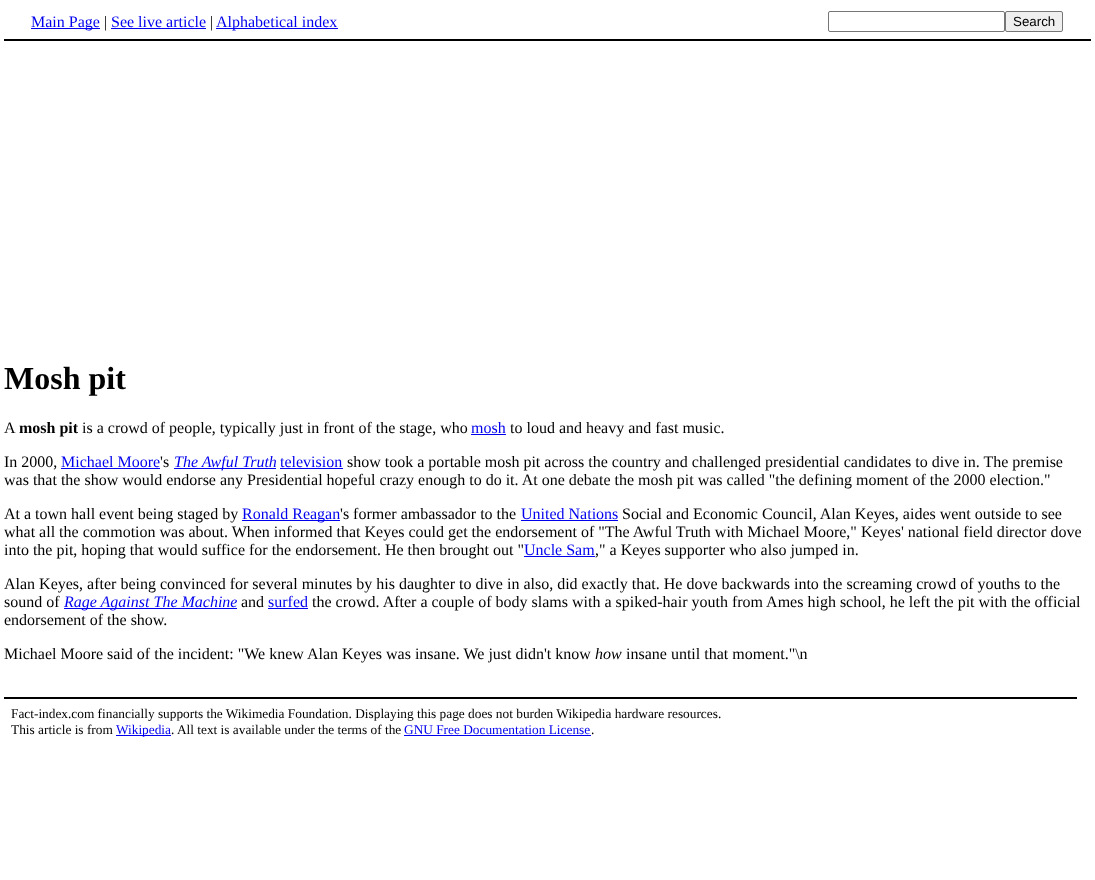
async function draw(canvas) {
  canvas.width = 1095
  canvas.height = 880
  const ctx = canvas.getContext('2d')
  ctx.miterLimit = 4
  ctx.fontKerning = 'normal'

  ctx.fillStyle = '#fff'
  ctx.fillRect(0, 0, 1095, 880)
  ctx.fillStyle = '#000'
  ctx.fillRect(4, 39, 1087, 2)
  ctx.fillStyle = '#00e'
  ctx.fillRect(31, 28, 69, 1)
  ctx.font = '16px Liberation Serif'
  ctx.fillText('Main Page', 31, 27)
  ctx.fillStyle = '#000'
  ctx.fillText('|', 104, 27)
  ctx.fillStyle = '#00e'
  ctx.fillText('See live article', 111, 27)
  ctx.fillRect(111, 28, 95, 1)
  ctx.fillStyle = '#000'
  ctx.fillText('|', 210, 27)
  ctx.fillStyle = '#00e'
  ctx.fillRect(216, 28, 122, 1)
  ctx.fillText('Alphabetical index', 216, 27)
  ctx.beginPath()
  ctx.roundRect(828.5, 11.5, 176, 20, 1.5)
  ctx.strokeStyle = '#767676'
  ctx.stroke()
  ctx.fillStyle = '#efefef'
  ctx.beginPath()
  ctx.roundRect(1005.5, 11.5, 57, 20, 1.5)
  ctx.fill()
  ctx.stroke()
  ctx.font = '13.33px Liberation Sans'
  ctx.fillStyle = '#000'
  ctx.fillText('Search', 1013, 26)
  ctx.font = 'bold 32px Liberation Serif'
  ctx.fillText('Mosh pit', 4, 389)
  ctx.font = '16px Liberation Serif'
  ctx.fillText('A', 4, 433)
  ctx.font = 'bold 16px Liberation Serif'
  ctx.fillText('mosh pit', 19, 433)
  ctx.font = '16px Liberation Serif'
  ctx.fillText('is a crowd of people, typically just in front of the stage, who', 82, 433)
  ctx.fillStyle = '#00e'
  ctx.fillText('mosh', 471, 433)
  ctx.fillRect(471, 434, 35, 1)
  ctx.fillStyle = '#000'
  ctx.fillText('to loud and heavy and fast music.', 510, 433)
  ctx.fillText('In 2000,', 4, 467)
  ctx.fillStyle = '#00e'
  ctx.fillText('Michael Moore', 61, 467)
  ctx.fillRect(61, 468, 99, 1)
  ctx.fillStyle = '#000'
  ctx.fillText('\'s', 160, 467)
  ctx.fillStyle = '#00e'
  ctx.fillRect(174, 468, 102, 1)
  ctx.font = 'italic 16px Liberation Serif'
  ctx.fillText('The Awful Truth', 174, 467)
  ctx.font = '16px Liberation Serif'
  ctx.fillText('television', 280, 467)
  ctx.fillRect(280, 468, 63, 1)
  ctx.fillStyle = '#000'
  ctx.fillText('show took a portable mosh pit across the country and challenged presidential candidates to dive in. The premise', 347, 467)
  ctx.fillText('was that the show would endorse any Presidential hopeful crazy enough to do it. At one debate the mosh pit was called "the defining moment of the 2000 election."', 4, 485)
  ctx.fillText('At a town hall event being staged by', 4, 519)
  ctx.fillStyle = '#00e'
  ctx.fillRect(242, 520, 98, 1)
  ctx.fillText('Ronald Reagan', 242, 519)
  ctx.fillStyle = '#000'
  ctx.fillText('\'s former ambassador to the', 340, 519)
  ctx.fillStyle = '#00e'
  ctx.fillText('United Nations', 521, 519)
  ctx.fillRect(521, 520, 97, 1)
  ctx.fillStyle = '#000'
  ctx.fillText('Social and Economic Council, Alan Keyes, aides went outside to see', 622, 519)
  ctx.fillText('what all the commotion was about. When informed that Keyes could get the endorsement of "The Awful Truth with Michael Moore," Keyes\' national field director dove', 4, 537)
  ctx.fillText('into the pit, hoping that would suffice for the endorsement. He then brought out "', 4, 555)
  ctx.fillStyle = '#00e'
  ctx.fillText('Uncle Sam', 524, 555)
  ctx.fillRect(524, 556, 71, 1)
  ctx.fillStyle = '#000'
  ctx.fillText('," a Keyes supporter who also jumped in.', 595, 555)
  ctx.fillText('Alan Keyes, after being convinced for several minutes by his daughter to dive in also, did exactly that. He dove backwards into the screaming crowd of youths to the', 4, 589)
  ctx.fillText('sound of', 4, 607)
  ctx.fillStyle = '#00e'
  ctx.fillRect(64, 608, 173, 1)
  ctx.font = 'italic 16px Liberation Serif'
  ctx.fillText('Rage Against The Machine', 64, 607)
  ctx.font = '16px Liberation Serif'
  ctx.fillStyle = '#000'
  ctx.fillText('and', 241, 607)
  ctx.fillStyle = '#00e'
  ctx.fillText('surfed', 268, 607)
  ctx.fillRect(268, 608, 40, 1)
  ctx.fillStyle = '#000'
  ctx.fillText('the crowd. After a couple of body slams with a spiked-hair youth from Ames high school, he left the pit with the official', 312, 607)
  ctx.fillText('endorsement of the show.', 4, 625)
  ctx.fillText('Michael Moore said of the incident: "We knew Alan Keyes was insane. We just didn\'t know', 4, 659)
  ctx.font = 'italic 16px Liberation Serif'
  ctx.fillText('how', 595, 659)
  ctx.font = '16px Liberation Serif'
  ctx.fillText('insane until that moment."\\n', 626, 659)
  ctx.fillRect(4, 697, 1073, 2)
  ctx.font = '13.33px Liberation Serif'
  ctx.fillText('Fact-index.com financially supports the Wikimedia Foundation. Displaying this page does not burden Wikipedia hardware resources.', 11, 718)
  ctx.fillText('This article is from', 11, 734)
  ctx.fillStyle = '#00e'
  ctx.fillRect(116, 735, 55, 1)
  ctx.fillText('Wikipedia', 116, 734)
  ctx.fillStyle = '#000'
  ctx.fillText('. All text is available under the terms of the', 171, 734)
  ctx.fillStyle = '#00e'
  ctx.fillText('GNU Free Documentation License', 404, 734)
  ctx.fillStyle = '#000'
  ctx.fillText('.', 591, 734)
  ctx.fillStyle = '#00e'
  ctx.fillRect(404, 735, 187, 1)
}

draw(document.querySelector('canvas'))
